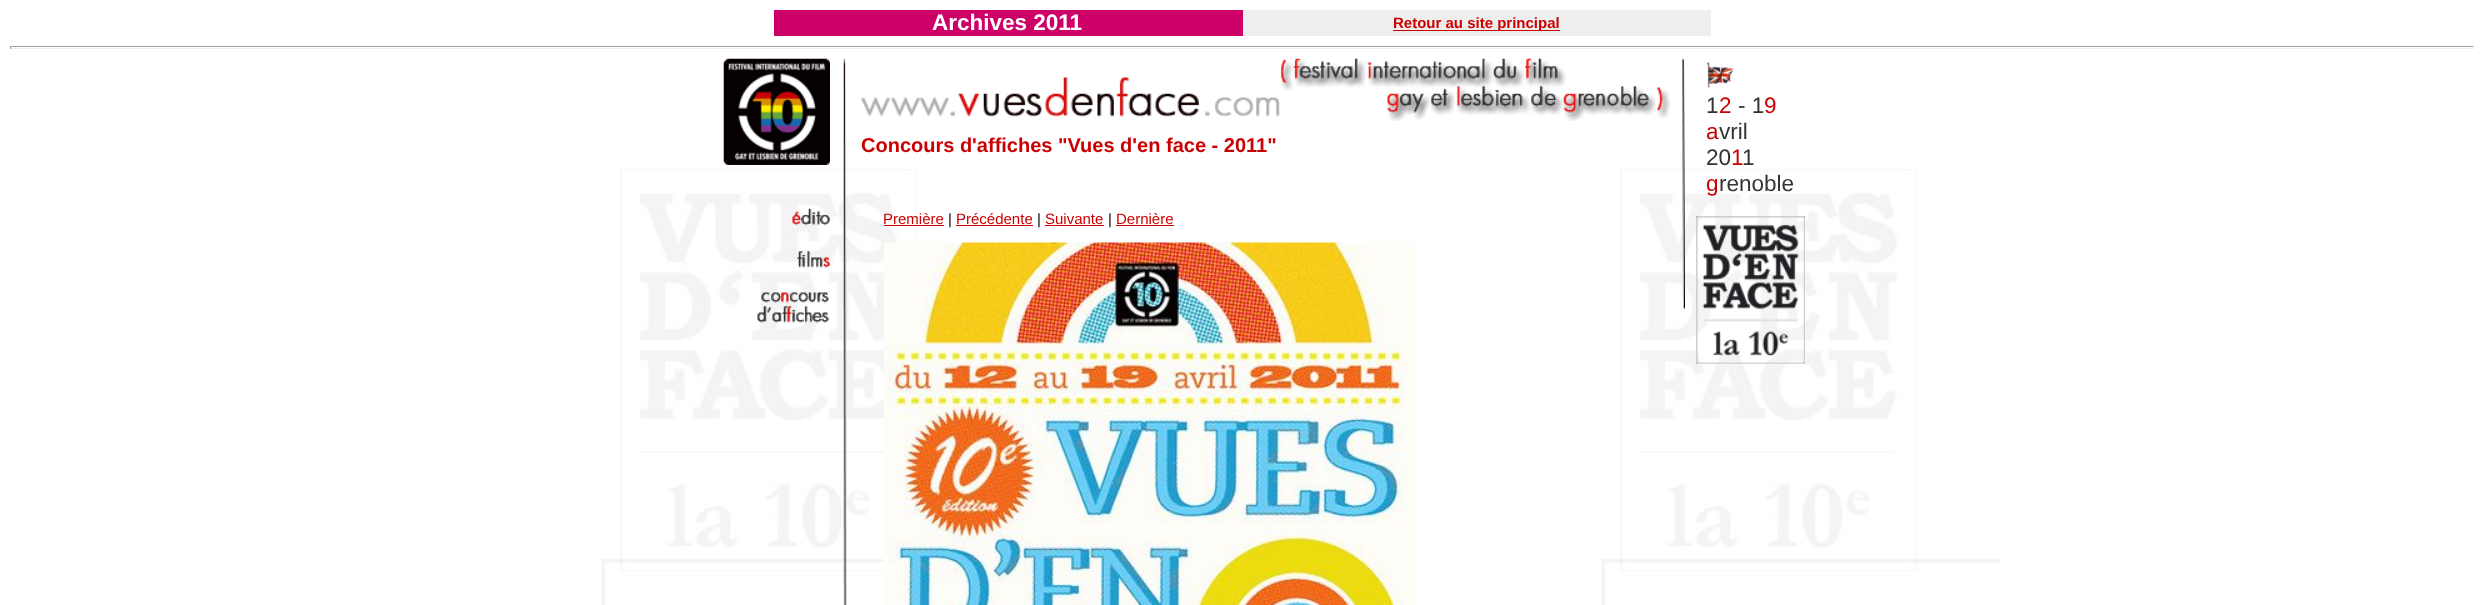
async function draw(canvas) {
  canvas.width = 2483
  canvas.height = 605
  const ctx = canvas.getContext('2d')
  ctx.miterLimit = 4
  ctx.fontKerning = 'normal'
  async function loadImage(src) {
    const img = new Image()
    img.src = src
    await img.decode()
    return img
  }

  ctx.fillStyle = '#fff'
  ctx.fillRect(0, 0, 2483, 605)
  ctx.drawImage(await loadImage('image0.png'), 601, 169, 1399, 436)
  ctx.fillStyle = '#c06'
  ctx.fillRect(774, 10, 469, 26)
  ctx.font = 'bold 22.5px Liberation Sans'
  ctx.fillStyle = '#fff'
  ctx.fillText('Archives 2011', 932, 30)
  ctx.fillStyle = '#eee'
  ctx.fillRect(1243, 10, 468, 26)
  ctx.fillStyle = '#c00'
  ctx.fillRect(1393, 30, 167, 1)
  ctx.font = 'bold 15px Liberation Sans'
  ctx.fillText('Retour au site principal', 1393, 28)
  ctx.fillStyle = '#9f9f9f'
  ctx.fillRect(10, 46, 2464, 1)
  ctx.fillStyle = '#eee'
  ctx.fillRect(2473, 46, 1, 3)
  ctx.fillRect(10, 48, 2464, 1)
  ctx.fillStyle = '#9f9f9f'
  ctx.fillRect(10, 46, 1, 3)
  ctx.font = 'bold 20px Liberation Sans'
  ctx.fillStyle = '#c00'
  ctx.fillText('Concours d\'affiches "Vues d\'en face - 2011"', 861, 152)
  ctx.drawImage(await loadImage('image1.png'), 723, 58, 107, 107)
  ctx.drawImage(await loadImage('image2.png'), 843, 58, 4, 547)
  ctx.drawImage(await loadImage('image3.png'), 861, 77, 419, 40)
  ctx.drawImage(await loadImage('image4.png'), 1280, 58, 391, 63)
  ctx.drawImage(await loadImage('image5.png'), 1682, 58, 3, 251)
  ctx.drawImage(await loadImage('image6.png'), 1707, 62, 27, 26)
  ctx.font = '22.5px Liberation Sans'
  ctx.fillStyle = '#333'
  ctx.fillText('1', 1706, 113)
  ctx.fillStyle = '#c00'
  ctx.fillText('2', 1719, 113)
  ctx.fillStyle = '#333'
  ctx.fillText('- 1', 1738, 113)
  ctx.fillStyle = '#c00'
  ctx.fillText('9', 1764, 113)
  ctx.fillText('a', 1706, 139)
  ctx.fillStyle = '#333'
  ctx.fillText('vril', 1719, 139)
  ctx.fillText('20', 1706, 165)
  ctx.fillStyle = '#c00'
  ctx.fillText('1', 1731, 165)
  ctx.fillStyle = '#333'
  ctx.fillText('1', 1742, 165)
  ctx.fillStyle = '#c00'
  ctx.fillText('g', 1706, 191)
  ctx.fillStyle = '#333'
  ctx.fillText('renoble', 1719, 191)
  ctx.drawImage(await loadImage('image7.png'), 1696, 216, 109, 148)
  ctx.drawImage(await loadImage('image8.png'), 757, 208, 73, 115)
  ctx.font = '15px Liberation Sans'
  ctx.fillStyle = '#c00'
  ctx.fillText('Première', 883, 224)
  ctx.fillRect(884, 225, 60, 1)
  ctx.fillStyle = '#000'
  ctx.fillText('|', 948, 224)
  ctx.fillStyle = '#c00'
  ctx.fillText('Précédente', 956, 224)
  ctx.fillRect(956, 225, 77, 1)
  ctx.fillStyle = '#000'
  ctx.fillText('|', 1037, 224)
  ctx.fillStyle = '#c00'
  ctx.fillText('Suivante', 1045, 224)
  ctx.fillRect(1045, 225, 59, 1)
  ctx.fillStyle = '#000'
  ctx.fillText('|', 1108, 224)
  ctx.fillStyle = '#c00'
  ctx.fillText('Dernière', 1116, 224)
  ctx.fillRect(1116, 225, 58, 1)
  ctx.drawImage(await loadImage('image9.png'), 883, 242, 531, 363)
}

draw(document.querySelector('canvas'))
